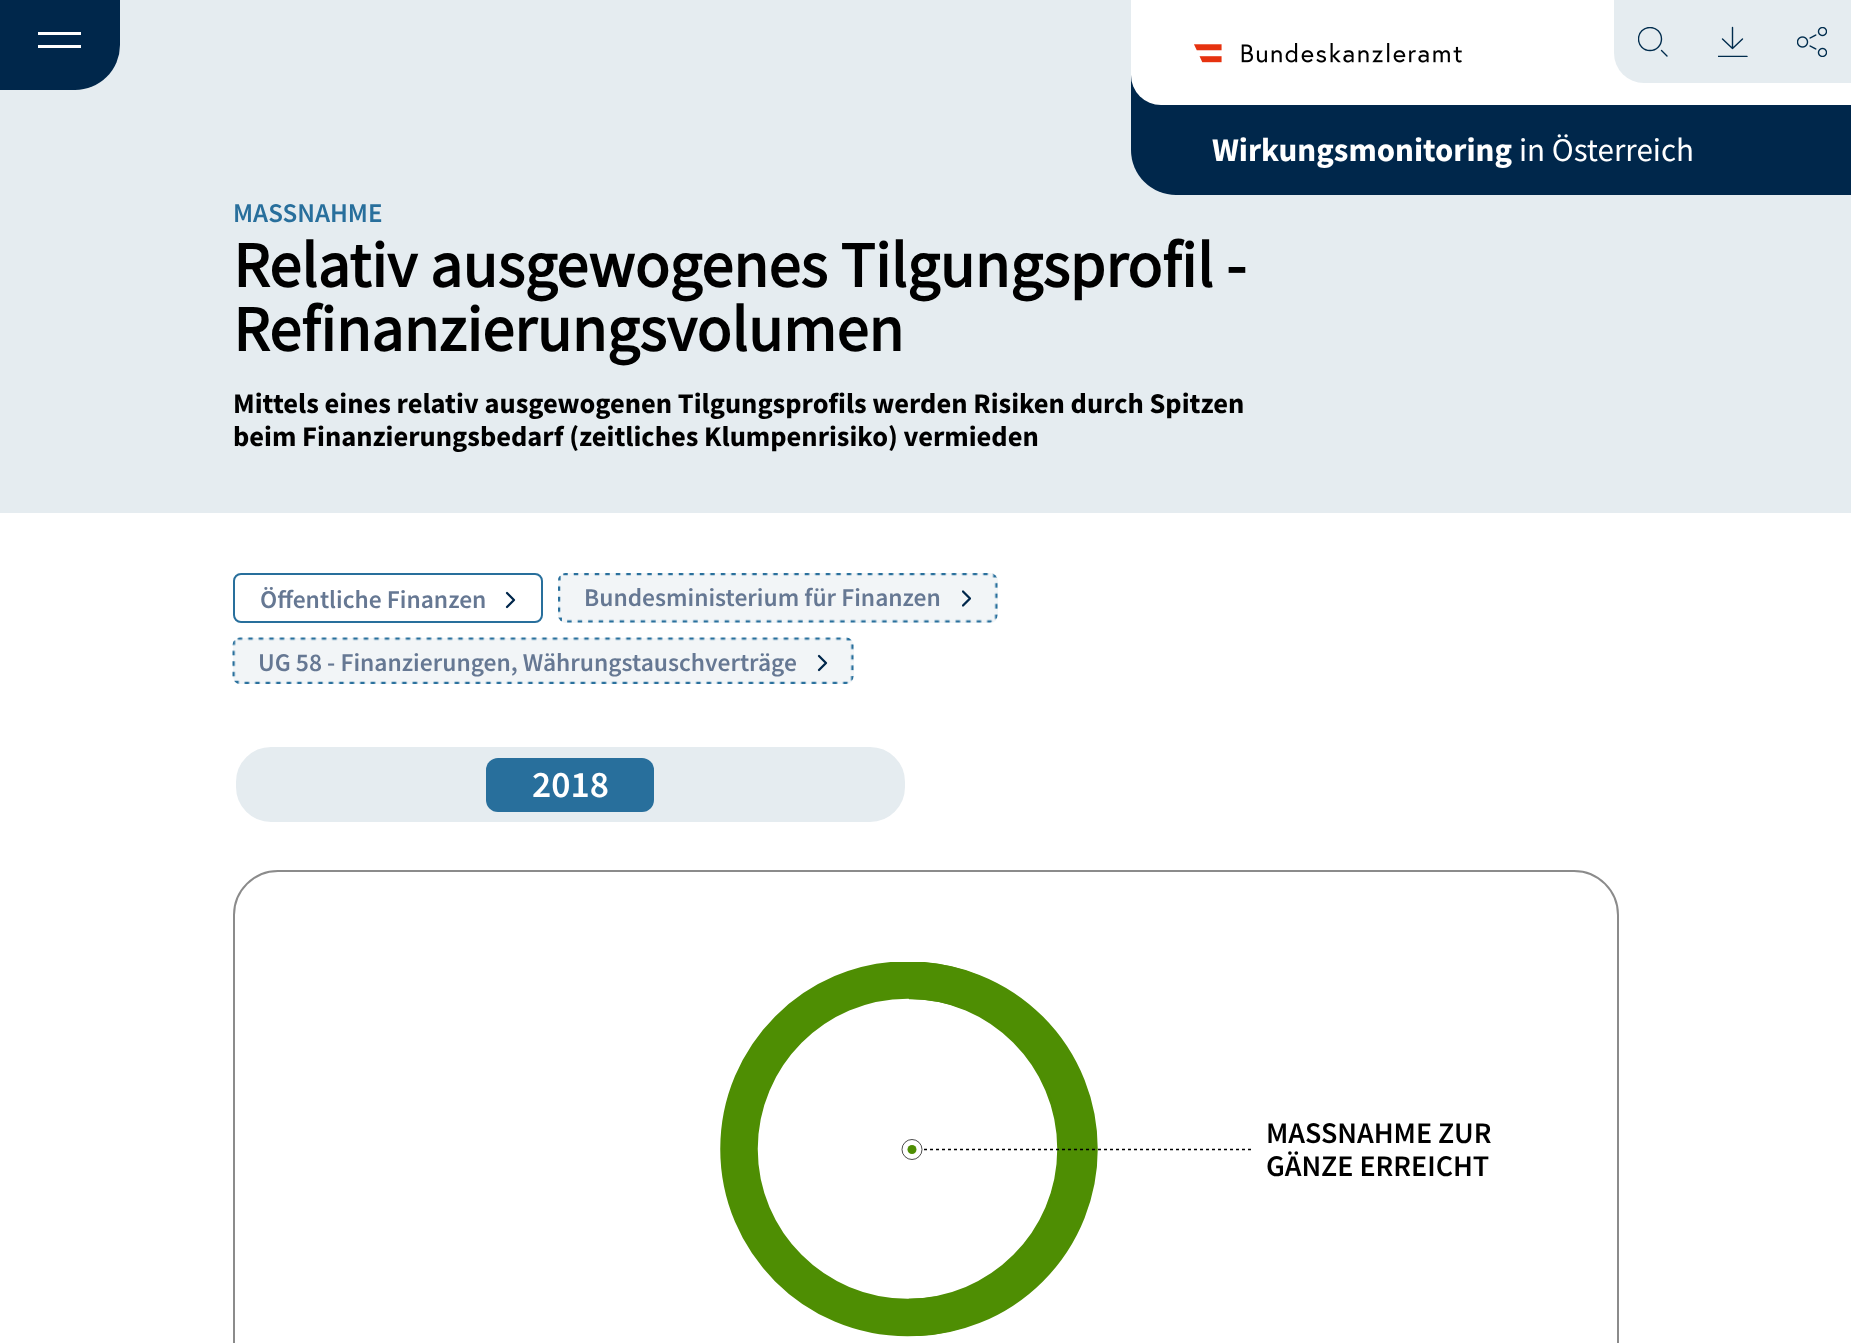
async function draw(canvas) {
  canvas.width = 1851
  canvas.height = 1343
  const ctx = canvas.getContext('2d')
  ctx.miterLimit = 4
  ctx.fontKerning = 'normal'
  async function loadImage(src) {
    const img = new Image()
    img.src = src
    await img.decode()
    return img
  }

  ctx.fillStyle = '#e5ecf0'
  ctx.fillRect(0, 0, 1851, 1343)
  ctx.fillStyle = '#00274b'
  ctx.beginPath()
  ctx.roundRect(0, 0, 120, 90, [0, 0, 45, 0])
  ctx.fill()
  ctx.fillStyle = '#fff'
  ctx.fillRect(38, 32, 43, 3)
  ctx.fillRect(38, 45, 43, 3)
  ctx.fillStyle = '#00274b'
  ctx.beginPath()
  ctx.roundRect(1131, 0, 720, 195, [0, 0, 0, 45])
  ctx.fill()
  ctx.fillStyle = '#fff'
  ctx.beginPath()
  ctx.roundRect(1131, 0, 720, 105, [0, 0, 0, 30])
  ctx.fill()
  ctx.drawImage(await loadImage('image0.png'), 1194, 43, 268, 20)
  ctx.fillStyle = '#e5ecf0'
  ctx.beginPath()
  ctx.roundRect(1614, 0, 237, 83, [0, 0, 0, 30])
  ctx.fill()
  ctx.beginPath()
  ctx.moveTo(1667, 56)
  ctx.lineTo(1661.5, 50.5)
  ctx.strokeStyle = '#002c4d'
  ctx.lineWidth = 1.4
  ctx.lineCap = 'round'
  ctx.lineJoin = 'round'
  ctx.stroke()
  ctx.save()
  ctx.beginPath()
  ctx.rect(1638, 27, 30, 30)
  ctx.clip()
  ctx.beginPath()
  ctx.arc(1650, 39, 11.5, 0, 2 * Math.PI)
  ctx.stroke()
  ctx.restore()
  ctx.beginPath()
  ctx.moveTo(1732.5, 27.5)
  ctx.lineTo(1732.5, 48.5)
  ctx.moveTo(1742.5, 39)
  ctx.lineTo(1732.5, 48.5)
  ctx.lineTo(1722.5, 39)
  ctx.stroke()
  ctx.save()
  ctx.beginPath()
  ctx.rect(1718, 27, 30, 30)
  ctx.clip()
  ctx.beginPath()
  ctx.moveTo(1747, 56.5)
  ctx.lineTo(1718, 56.5)
  ctx.stroke()
  ctx.restore()
  ctx.drawImage(await loadImage('image1.png'), 1797, 27, 30, 30)
  ctx.font = 'bold 33px "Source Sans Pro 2"'
  ctx.fillStyle = '#fff'
  ctx.fillText('Wirkungsmonitoring', 1212, 161)
  ctx.font = '33px Source Sans Pro'
  ctx.fillText('in Österreich', 1519, 161)
  ctx.font = '600 27px Source Sans Pro'
  ctx.fillStyle = '#286f9c'
  ctx.fillText('MASSNAHME', 233, 222)
  ctx.font = 'bold 64.5px Source Sans Pro'
  ctx.fillStyle = '#000'
  ctx.fillText('Relativ ausgewogenes Tilgungsprofil -', 233, 287)
  ctx.fillText('Refinanzierungsvolumen', 233, 351)
  ctx.font = 'bold 28.5px "Source Sans Pro 2"'
  ctx.fillText('Mittels eines relativ ausgewogenen Tilgungsprofils werden Risiken durch Spitzen', 233, 413)
  ctx.fillText('beim Finanzierungsbedarf (zeitliches Klumpenrisiko) vermieden', 233, 446)
  ctx.fillStyle = '#fff'
  ctx.fillRect(0, 513, 1851, 830)
  ctx.beginPath()
  ctx.roundRect(234, 574, 308, 48, 7)
  ctx.strokeStyle = '#286f9c'
  ctx.lineWidth = 2
  ctx.lineJoin = 'miter'
  ctx.stroke()
  ctx.font = '600 25.5px Source Sans Pro'
  ctx.fillStyle = '#667893'
  ctx.fillText('Öffentliche Finanzen', 260, 608)
  ctx.beginPath()
  ctx.moveTo(507, 593)
  ctx.lineTo(514, 600)
  ctx.lineTo(507, 607)
  ctx.strokeStyle = '#00274b'
  ctx.lineWidth = 2.3
  ctx.lineJoin = 'round'
  ctx.stroke()
  ctx.fillStyle = '#f2f5f7'
  ctx.beginPath()
  ctx.roundRect(558, 573, 440, 50, 8)
  ctx.fill()
  ctx.drawImage(await loadImage('image2.png'), 558, 573, 440, 50)
  ctx.fillStyle = '#667893'
  ctx.fillText('Bundesministerium für Finanzen', 584, 606)
  ctx.save()
  ctx.beginPath()
  ctx.rect(962, 590, 9, 18)
  ctx.clip()
  ctx.beginPath()
  ctx.moveTo(963, 591.5)
  ctx.lineTo(970, 598.5)
  ctx.lineTo(963, 605.5)
  ctx.stroke()
  ctx.restore()
  ctx.fillStyle = '#f2f5f7'
  ctx.beginPath()
  ctx.roundRect(233, 638, 621, 46, 8)
  ctx.fill()
  ctx.drawImage(await loadImage('image3.png'), 232, 637, 622, 47)
  ctx.fillStyle = '#667893'
  ctx.fillText('UG 58 - Finanzierungen, Währungstauschverträge', 258, 671)
  ctx.beginPath()
  ctx.moveTo(819, 656)
  ctx.lineTo(826, 663)
  ctx.lineTo(819, 670)
  ctx.stroke()
  ctx.fillStyle = '#e5ecf0'
  ctx.beginPath()
  ctx.roundRect(234.5, 745.5, 672, 78, 36.5)
  ctx.fill()
  ctx.strokeStyle = '#fff'
  ctx.lineWidth = 3
  ctx.lineJoin = 'miter'
  ctx.stroke()
  ctx.fillStyle = '#286f9c'
  ctx.beginPath()
  ctx.roundRect(486, 758, 168, 54, 12)
  ctx.fill()
  ctx.font = '600 37.5px Source Sans Pro'
  ctx.fillStyle = '#fff'
  ctx.fillText('2018', 532, 797)
  ctx.beginPath()
  ctx.roundRect(234, 871, 1384, 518, 44)
  ctx.strokeStyle = '#8b8b8b'
  ctx.lineWidth = 2
  ctx.stroke()
  ctx.save()
  ctx.beginPath()
  ctx.rect(720, 962, 531, 375)
  ctx.clip()
  ctx.beginPath()
  ctx.moveTo(907.5, 1317.5)
  ctx.bezierCurveTo(814.5, 1317.5, 739, 1242, 739, 1149)
  ctx.bezierCurveTo(739, 1056, 814.5, 980, 907.5, 980)
  ctx.bezierCurveTo(1000.5, 980, 1076, 1056, 1076, 1149)
  ctx.bezierCurveTo(1076, 1242, 1000.5, 1317.5, 907.5, 1317.5)
  ctx.closePath()
  ctx.strokeStyle = '#4e8e03'
  ctx.lineWidth = 37.5
  ctx.lineCap = 'butt'
  ctx.stroke()
  ctx.restore()
  ctx.save()
  ctx.beginPath()
  ctx.rect(909, 962, 189, 374)
  ctx.clip()
  ctx.beginPath()
  ctx.arc(910.5, 1149, 168.5, 0, 2 * Math.PI)
  ctx.strokeStyle = '#4e8e03'
  ctx.lineWidth = 37.5
  ctx.stroke()
  ctx.restore()
  ctx.beginPath()
  ctx.moveTo(918, 1149.5)
  ctx.lineTo(1251, 1149.5)
  ctx.strokeStyle = '#000'
  ctx.lineWidth = 1.5
  ctx.lineCap = 'butt'
  ctx.setLineDash([3, 3])
  ctx.stroke()
  ctx.beginPath()
  ctx.arc(912, 1149.5, 10.5, 0, 2 * Math.PI)
  ctx.fill()
  ctx.beginPath()
  ctx.arc(912, 1149.5, 10, 0, 2 * Math.PI)
  ctx.lineWidth = 0.7
  ctx.setLineDash([])
  ctx.stroke()
  ctx.fillStyle = '#4e8e03'
  ctx.beginPath()
  ctx.arc(912, 1149.5, 4.5, 0, 2 * Math.PI)
  ctx.fill()
  ctx.font = '600 30px Source Sans Pro'
  ctx.fillStyle = '#000'
  ctx.fillText('MASSNAHME ZUR', 1266, 1143)
  ctx.fillText('GÄNZE ERREICHT', 1266, 1176)
}

draw(document.querySelector('canvas'))
